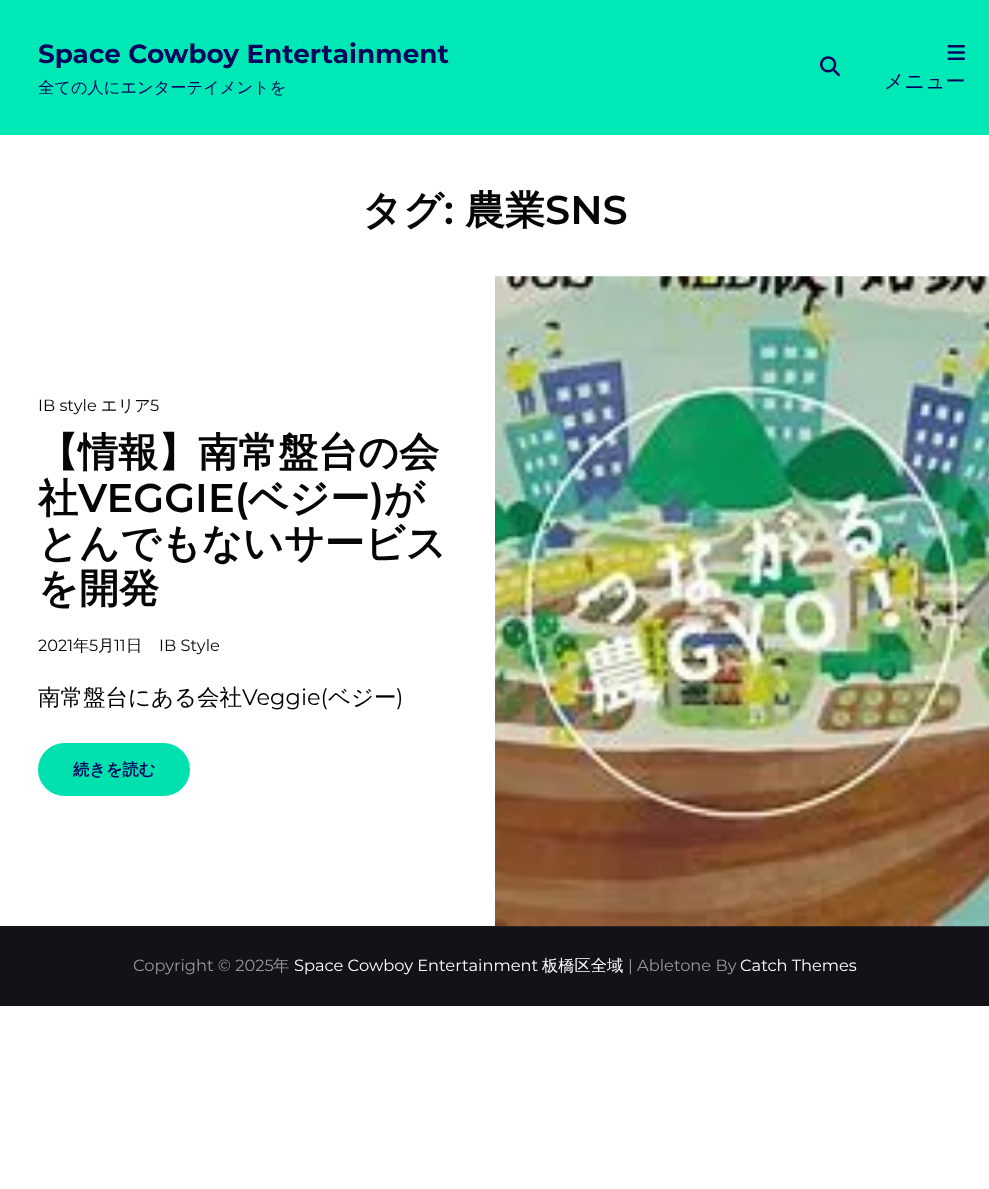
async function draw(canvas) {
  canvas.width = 989
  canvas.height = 1189
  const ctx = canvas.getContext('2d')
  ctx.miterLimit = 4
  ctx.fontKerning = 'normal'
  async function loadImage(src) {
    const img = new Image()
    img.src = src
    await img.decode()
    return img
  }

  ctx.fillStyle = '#fff'
  ctx.fillRect(0, 0, 989, 1189)
  ctx.fillStyle = '#00e8b6'
  ctx.fillRect(0, 0, 989, 135)
  ctx.font = 'bold 26.25px Montserrat'
  ctx.fillStyle = '#03065d'
  ctx.fillText('Space Cowboy Entertainment', 38, 63)
  ctx.font = '500 16.25px WenQuanYi Zen Hei'
  ctx.fillText('全ての人にエンターテイメントを', 38, 93)
  ctx.drawImage(await loadImage('image0.png'), 820, 56, 20, 21)
  ctx.drawImage(await loadImage('image1.png'), 947, 45, 18, 15)
  ctx.font = '500 20px WenQuanYi Zen Hei'
  ctx.fillText('メニュー', 884, 88)
  ctx.font = 'bold 40px WenQuanYi Zen Hei'
  ctx.fillStyle = '#060606'
  ctx.fillText('タグ', 362, 224)
  ctx.font = '600 40px Montserrat'
  ctx.fillText(':', 444, 224)
  ctx.font = 'bold 40px WenQuanYi Zen Hei'
  ctx.fillText('農業', 465, 224)
  ctx.font = '600 40px Montserrat'
  ctx.fillText('SNS', 545, 224)
  ctx.font = '16.25px Montserrat'
  ctx.fillText('IB style', 38, 411)
  ctx.font = '500 16.25px WenQuanYi Zen Hei'
  ctx.fillText('エリア', 101, 411)
  ctx.font = '16.25px Montserrat'
  ctx.fillText('5', 150, 411)
  ctx.font = 'bold 40px WenQuanYi Zen Hei'
  ctx.fillText('【情報】南常盤台の会', 38, 466)
  ctx.fillText('社', 38, 512)
  ctx.font = '600 40px Montserrat'
  ctx.fillText('VEGGIE(', 78, 512)
  ctx.font = 'bold 40px WenQuanYi Zen Hei'
  ctx.fillText('ベジー', 248, 512)
  ctx.font = '600 40px Montserrat'
  ctx.fillText(')', 370, 512)
  ctx.font = 'bold 40px WenQuanYi Zen Hei'
  ctx.fillText('が', 384, 512)
  ctx.fillText('とんでもないサービス', 38, 557)
  ctx.fillText('を開発', 38, 602)
  ctx.font = '16.25px Montserrat'
  ctx.fillText('2021', 38, 651)
  ctx.font = '500 16.25px WenQuanYi Zen Hei'
  ctx.fillText('年', 73, 651)
  ctx.font = '16.25px Montserrat'
  ctx.fillText('5', 89, 651)
  ctx.font = '500 16.25px WenQuanYi Zen Hei'
  ctx.fillText('月', 98, 651)
  ctx.font = '16.25px Montserrat'
  ctx.fillText('11', 114, 651)
  ctx.font = '500 16.25px WenQuanYi Zen Hei'
  ctx.fillText('日', 126, 651)
  ctx.font = '16.25px Montserrat'
  ctx.fillText('IB Style', 159, 651)
  ctx.font = '500 22.5px WenQuanYi Zen Hei'
  ctx.fillStyle = '#000'
  ctx.fillText('南常盤台にある会社', 38, 705)
  ctx.font = '22.5px Montserrat'
  ctx.fillText('Veggie(', 242, 705)
  ctx.font = '500 22.5px WenQuanYi Zen Hei'
  ctx.fillText('ベジー', 328, 705)
  ctx.font = '22.5px Montserrat'
  ctx.fillText(')', 396, 705)
  ctx.fillStyle = '#01e0af'
  ctx.beginPath()
  ctx.roundRect(38, 743, 152, 53, 26.5)
  ctx.fill()
  ctx.font = 'bold 16.25px WenQuanYi Zen Hei'
  ctx.fillStyle = '#03065d'
  ctx.fillText('続きを読む', 73, 775)
  ctx.fillStyle = '#131218'
  ctx.fillRect(0, 926, 989, 80)
  ctx.drawImage(await loadImage('image2.png'), 495, 276, 494, 651)
  ctx.font = '16.25px Montserrat'
  ctx.fillStyle = '#999'
  ctx.fillText('Copyright © 2025', 133, 971)
  ctx.font = '500 16.25px WenQuanYi Zen Hei'
  ctx.fillText('年', 273, 971)
  ctx.font = '16.25px Montserrat'
  ctx.fillStyle = '#fff'
  ctx.fillText('Space Cowboy Entertainment', 294, 971)
  ctx.font = '500 16.25px WenQuanYi Zen Hei'
  ctx.fillText('板橋区全域', 542, 971)
  ctx.font = '16.25px Montserrat'
  ctx.fillStyle = '#999'
  ctx.fillText('| Abletone By', 628, 971)
  ctx.fillStyle = '#fff'
  ctx.fillText('Catch Themes', 740, 971)
}

draw(document.querySelector('canvas'))
